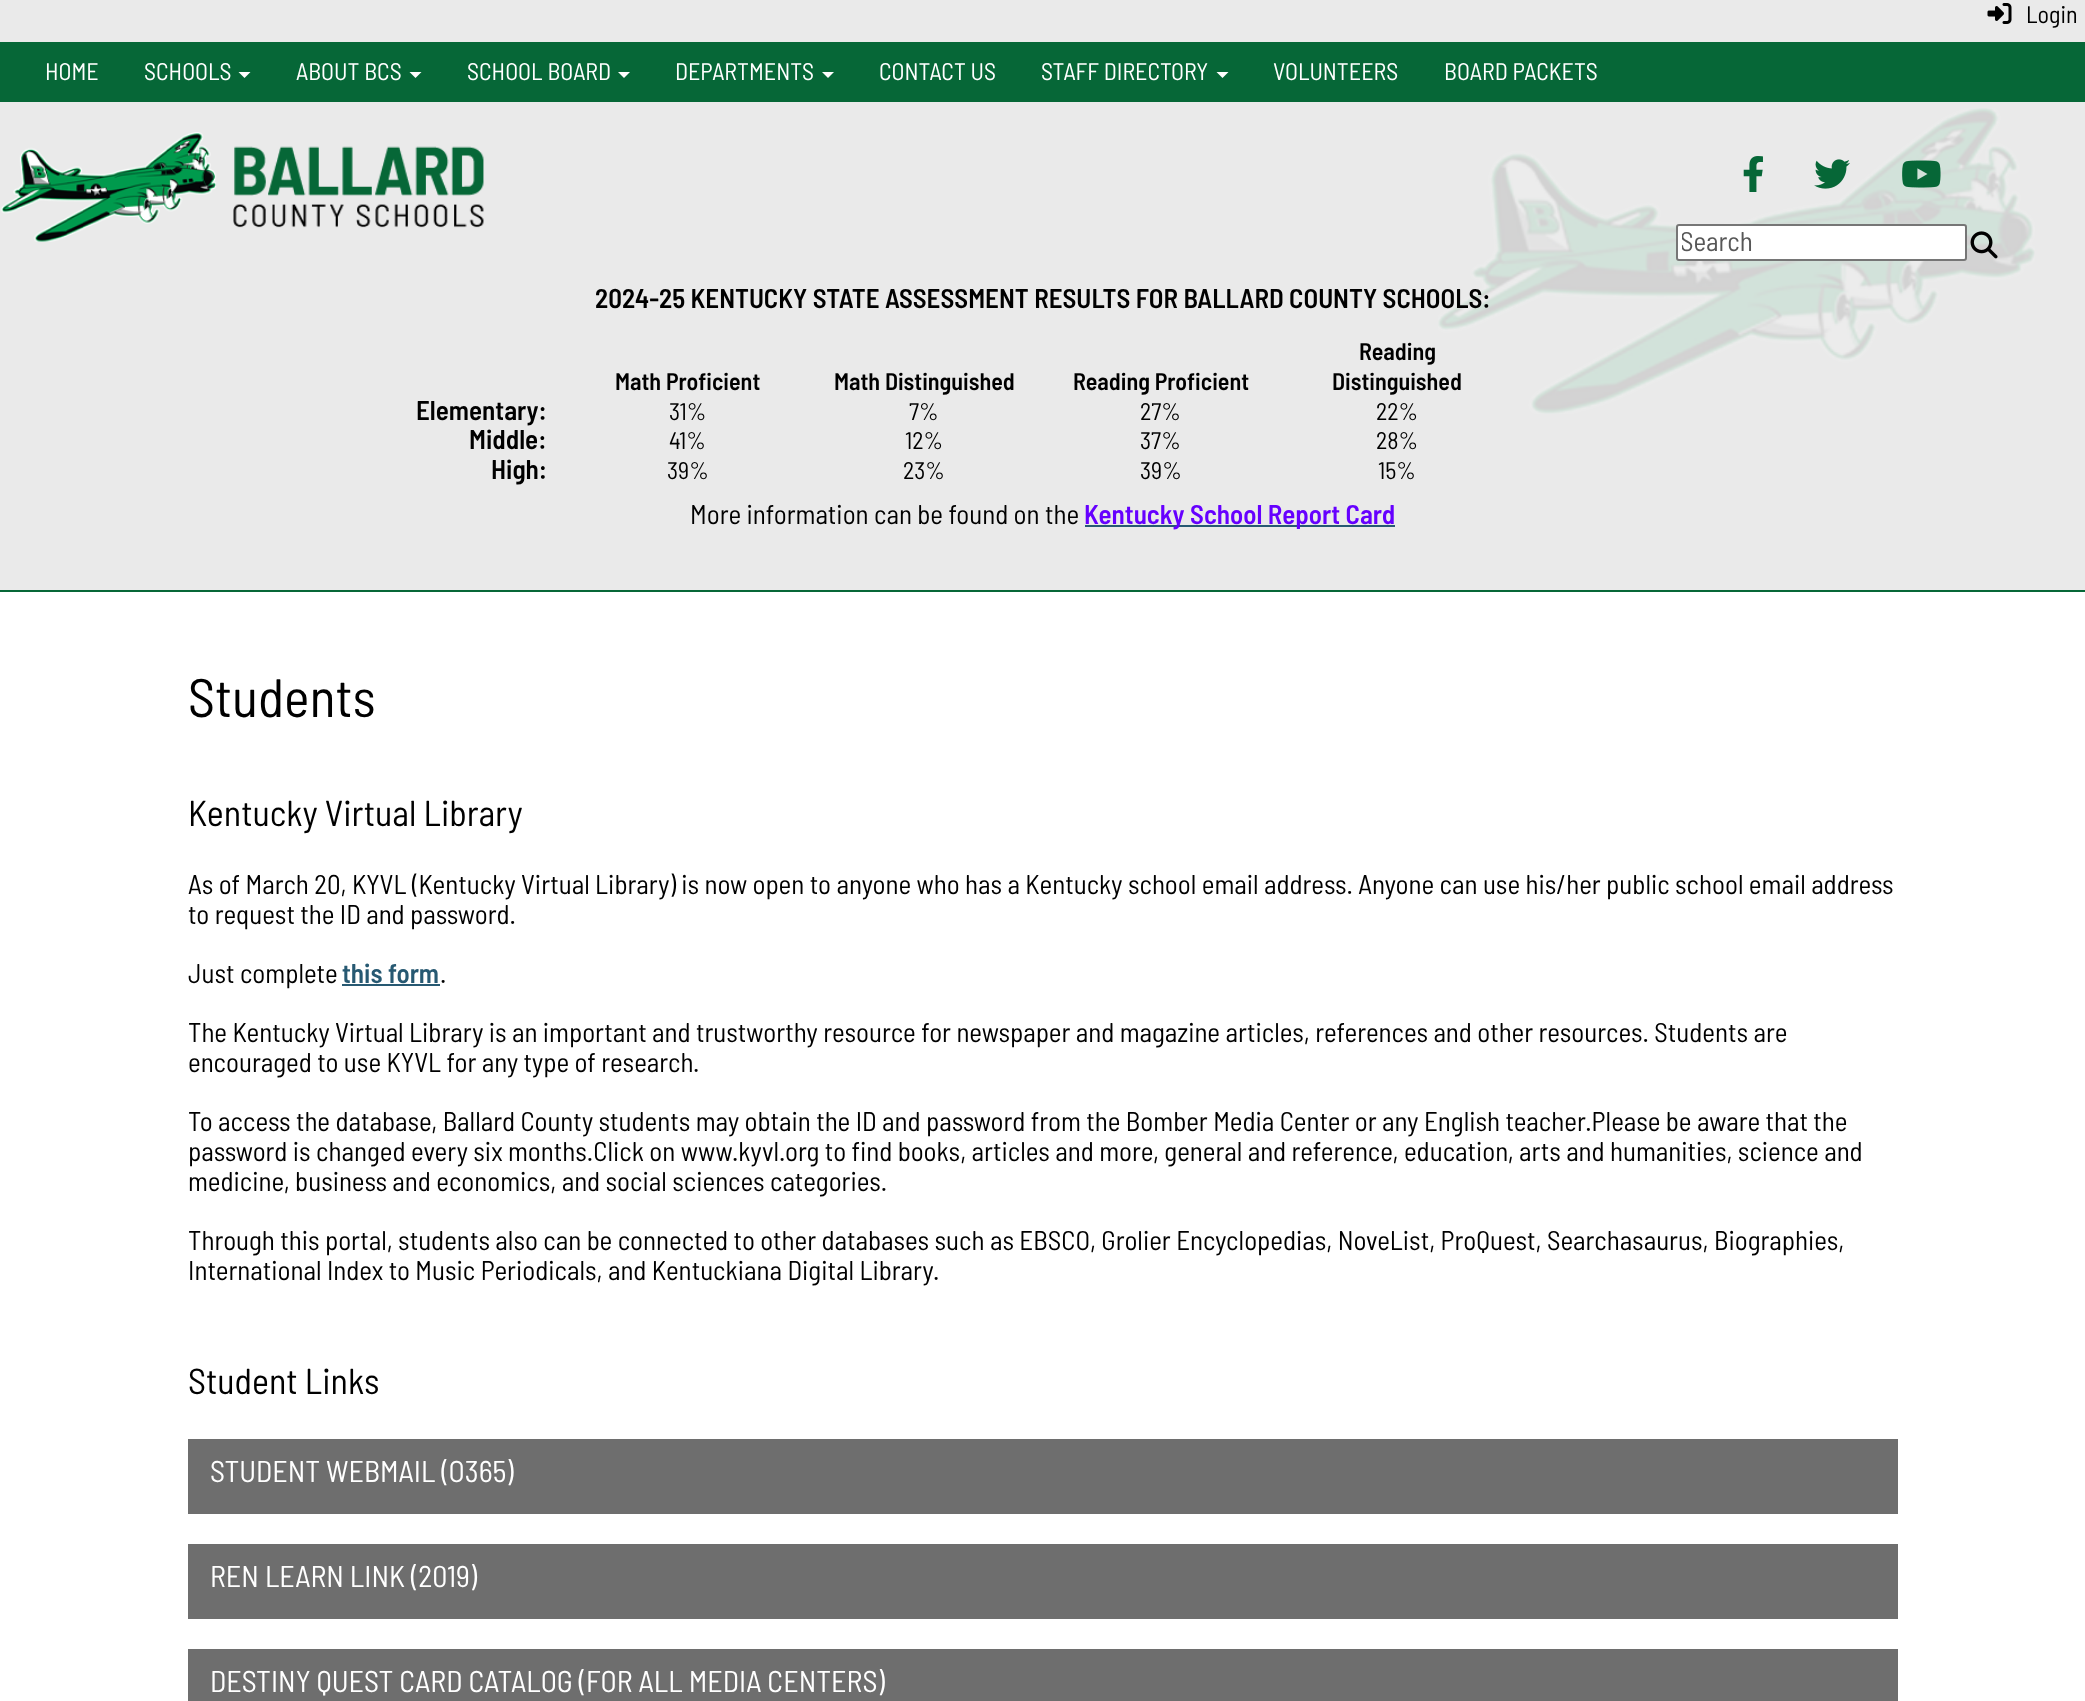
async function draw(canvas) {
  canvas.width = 2085
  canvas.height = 1701
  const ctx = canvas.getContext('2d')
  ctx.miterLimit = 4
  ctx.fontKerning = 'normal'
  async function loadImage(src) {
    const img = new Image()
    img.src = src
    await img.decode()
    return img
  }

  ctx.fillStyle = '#fff'
  ctx.fillRect(0, 0, 2085, 1701)
  ctx.fillStyle = '#eaeaea'
  ctx.fillRect(0, 0, 2085, 42)
  ctx.drawImage(await loadImage('image0.png'), 1987, 3, 25, 21)
  ctx.font = '24px Barlow Semi Condensed'
  ctx.fillStyle = '#000'
  ctx.fillText('Login', 2026, 23)
  ctx.fillStyle = '#066737'
  ctx.fillRect(0, 42, 2085, 60)
  ctx.fillStyle = '#fff'
  ctx.fillText('HOME', 45, 80)
  ctx.fillText('SCHOOLS', 144, 80)
  ctx.beginPath()
  ctx.moveTo(238.5, 72)
  ctx.lineTo(250.5, 72)
  ctx.lineTo(244.5, 78)
  ctx.closePath()
  ctx.fill()
  ctx.fillText('ABOUT BCS', 296, 80)
  ctx.beginPath()
  ctx.moveTo(409.5, 72)
  ctx.lineTo(421.5, 72)
  ctx.lineTo(415.5, 78)
  ctx.closePath()
  ctx.fill()
  ctx.fillText('SCHOOL BOARD', 467, 80)
  ctx.beginPath()
  ctx.moveTo(618, 72)
  ctx.lineTo(630, 72)
  ctx.lineTo(624, 78)
  ctx.closePath()
  ctx.fill()
  ctx.fillText('DEPARTMENTS', 675, 80)
  ctx.beginPath()
  ctx.moveTo(822, 72)
  ctx.lineTo(834, 72)
  ctx.lineTo(828, 78)
  ctx.closePath()
  ctx.fill()
  ctx.fillText('CONTACT US', 879, 80)
  ctx.fillText('STAFF DIRECTORY', 1041, 80)
  ctx.beginPath()
  ctx.moveTo(1216.5, 72)
  ctx.lineTo(1228.5, 72)
  ctx.lineTo(1222.5, 78)
  ctx.closePath()
  ctx.fill()
  ctx.fillText('VOLUNTEERS', 1273, 80)
  ctx.fillText('BOARD PACKETS', 1444, 80)
  ctx.fillStyle = '#eaeaea'
  ctx.fillRect(0, 102, 2085, 488)
  ctx.drawImage(await loadImage('image1.png'), 1438, 108, 597, 306)
  ctx.drawImage(await loadImage('image2.png'), 0, 132, 484, 110)
  ctx.drawImage(await loadImage('image3.png'), 1743, 156, 20, 36)
  ctx.drawImage(await loadImage('image4.png'), 1814, 159, 36, 30)
  ctx.drawImage(await loadImage('image5.png'), 1902, 160, 39, 28)
  ctx.fillStyle = '#fff'
  ctx.beginPath()
  ctx.roundRect(1677, 225, 289, 35, 2)
  ctx.fill()
  ctx.strokeStyle = '#767676'
  ctx.lineWidth = 2
  ctx.stroke()
  ctx.save()
  ctx.beginPath()
  ctx.rect(1682, 227, 279, 31)
  ctx.clip()
  ctx.font = '27px Barlow Semi Condensed'
  ctx.fillStyle = '#575757'
  ctx.fillText('Search', 1680, 251)
  ctx.restore()
  ctx.drawImage(await loadImage('image6.png'), 1970, 231, 28, 28)
  ctx.font = '600 27px Barlow Semi Condensed'
  ctx.fillStyle = '#000'
  ctx.fillText('2024-25 KENTUCKY STATE ASSESSMENT RESULTS FOR BALLARD COUNTY SCHOOLS:', 595, 308)
  ctx.fillText('Elementary:', 416, 420)
  ctx.fillText('Middle:', 469, 449)
  ctx.fillText('High:', 491, 479)
  ctx.font = '600 24px Barlow Semi Condensed'
  ctx.fillText('Math Proficient', 615, 390)
  ctx.font = '24px Barlow Semi Condensed'
  ctx.fillText('31%', 669, 420)
  ctx.fillText('41%', 669, 449)
  ctx.fillText('39%', 667, 479)
  ctx.font = '600 24px Barlow Semi Condensed'
  ctx.fillText('Math Distinguished', 834, 390)
  ctx.font = '24px Barlow Semi Condensed'
  ctx.fillText('7%', 909, 420)
  ctx.fillText('12%', 905, 449)
  ctx.fillText('23%', 903, 479)
  ctx.font = '600 24px Barlow Semi Condensed'
  ctx.fillText('Reading Proficient', 1073, 390)
  ctx.font = '24px Barlow Semi Condensed'
  ctx.fillText('27%', 1140, 420)
  ctx.fillText('37%', 1140, 449)
  ctx.fillText('39%', 1140, 479)
  ctx.font = '600 24px Barlow Semi Condensed'
  ctx.fillText('Reading', 1359, 360)
  ctx.fillText('Distinguished', 1332, 390)
  ctx.font = '24px Barlow Semi Condensed'
  ctx.fillText('22%', 1376, 420)
  ctx.fillText('28%', 1376, 449)
  ctx.fillText('15%', 1378, 479)
  ctx.font = '27px Barlow Semi Condensed'
  ctx.fillText('More information can be found on the', 690, 524)
  ctx.fillStyle = '#275972'
  ctx.fillRect(1085, 525, 310, 2)
  ctx.font = '600 27px Barlow Semi Condensed'
  ctx.fillStyle = '#60f'
  ctx.fillText('Kentucky School Report Card', 1084, 524)
  ctx.fillStyle = '#066737'
  ctx.fillRect(0, 590, 2085, 2)
  ctx.font = '54px Barlow Semi Condensed'
  ctx.fillStyle = '#000'
  ctx.fillText('Students', 188, 717)
  ctx.font = '36px Barlow Semi Condensed'
  ctx.fillText('Kentucky Virtual Library', 188, 826)
  ctx.font = '27px Barlow Semi Condensed'
  ctx.fillText('As of March 20, KYVL (Kentucky Virtual Library) is now open to anyone who has a Kentucky school email address. Anyone can use his/her public school email address', 188, 894)
  ctx.fillText('to request the ID and password.', 188, 924)
  ctx.fillText('Just complete', 188, 983)
  ctx.font = '600 27px Barlow Semi Condensed'
  ctx.fillStyle = '#275972'
  ctx.fillText('this form', 342, 983)
  ctx.fillRect(342, 984, 98, 2)
  ctx.font = '27px Barlow Semi Condensed'
  ctx.fillStyle = '#000'
  ctx.fillText('.', 440, 983)
  ctx.fillText('The Kentucky Virtual Library is an important and trustworthy resource for newspaper and magazine articles, references and other resources. Students are', 188, 1042)
  ctx.fillText('encouraged to use KYVL for any type of research.', 188, 1072)
  ctx.fillText('To access the database, Ballard County students may obtain the ID and password from the Bomber Media Center or any English teacher.Please be aware that the', 188, 1131)
  ctx.fillText('password is changed every six months.Click on www.kyvl.org to find books, articles and more, general and reference, education, arts and humanities, science and', 188, 1161)
  ctx.fillText('medicine, business and economics, and social sciences categories.', 188, 1191)
  ctx.fillText('Through this portal, students also can be connected to other databases such as EBSCO, Grolier Encyclopedias, NoveList, ProQuest, Searchasaurus, Biographies,', 188, 1250)
  ctx.fillText('International Index to Music Periodicals, and Kentuckiana Digital Library.', 188, 1280)
  ctx.font = '36px Barlow Semi Condensed'
  ctx.fillText('Student Links', 188, 1394)
  ctx.fillStyle = '#6e6e6e'
  ctx.fillRect(188, 1439, 1710, 75)
  ctx.font = '30px Barlow Semi Condensed'
  ctx.fillStyle = '#fff'
  ctx.fillText('STUDENT WEBMAIL (O365)', 210, 1482)
  ctx.fillStyle = '#6e6e6e'
  ctx.fillRect(188, 1544, 1710, 75)
  ctx.fillStyle = '#fff'
  ctx.fillText('REN LEARN LINK (2019)', 210, 1587)
  ctx.fillStyle = '#6e6e6e'
  ctx.fillRect(188, 1649, 1710, 52)
  ctx.fillStyle = '#fff'
  ctx.fillText('DESTINY QUEST CARD CATALOG (FOR ALL MEDIA CENTERS)', 210, 1692)
}

draw(document.querySelector('canvas'))
